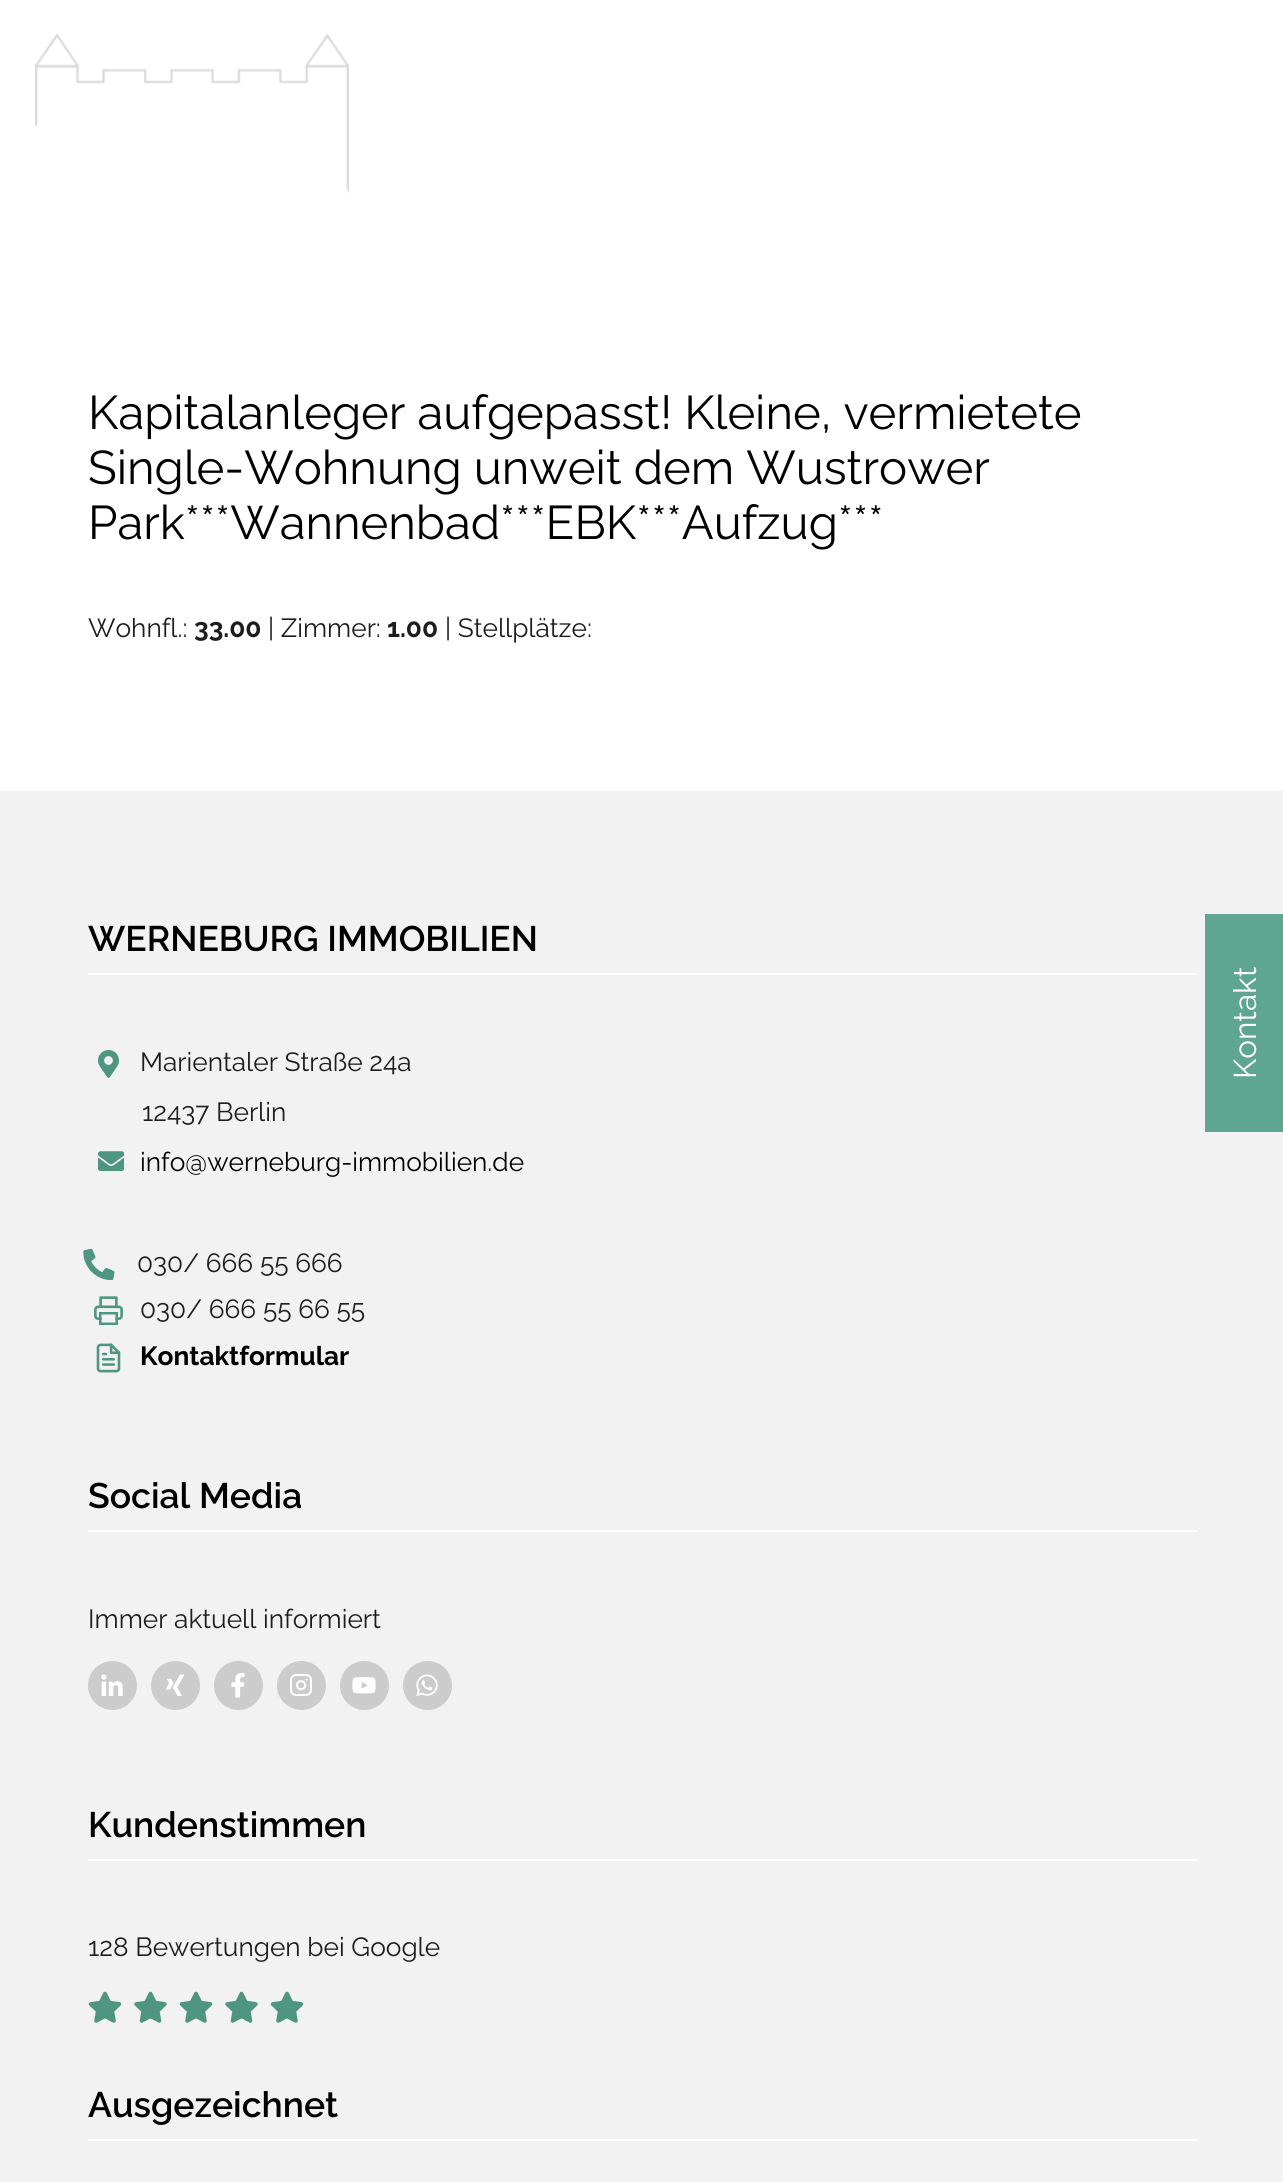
#include <cairo.h>
#include <math.h>
#include <stddef.h>


static void set_color(cairo_t *cr, unsigned color) {
    cairo_set_source_rgb(cr, (color >> 16) / 255.0, (color >> 8 & 255) / 255.0, (color & 255) / 255.0);
}

static void draw_text(cairo_t *cr, double x, double y, const char *s, const char *family, double size, int italic, int bold, unsigned color) {
    cairo_select_font_face(cr, family, italic ? CAIRO_FONT_SLANT_ITALIC : CAIRO_FONT_SLANT_NORMAL,
        bold ? CAIRO_FONT_WEIGHT_BOLD : CAIRO_FONT_WEIGHT_NORMAL);
    cairo_set_font_size(cr, size);
    set_color(cr, color);
    cairo_move_to(cr, x, y);
    cairo_show_text(cr, s);
}

static void fill_rect(cairo_t *cr, double x, double y, double w, double h, unsigned color) {
    set_color(cr, color);
    cairo_rectangle(cr, x, y, w, h);
    cairo_fill(cr);
}

static void draw_image(cairo_t *cr, const char *path, double x, double y, double w, double h) {
    cairo_surface_t *image = cairo_image_surface_create_from_png(path);
    cairo_save(cr);
    cairo_set_source_surface(cr, image, x, y);
    cairo_rectangle(cr, x, y, w, h);
    cairo_fill(cr);
    cairo_restore(cr);
    cairo_surface_destroy(image);
}

int main(void) {
    cairo_surface_t *surface = cairo_image_surface_create(CAIRO_FORMAT_RGB24, 1283, 2182);
    cairo_t *cr = cairo_create(surface);
    cairo_font_options_t *options = cairo_font_options_create();
    cairo_font_options_set_hint_metrics(options, CAIRO_HINT_METRICS_OFF);
    cairo_font_options_set_hint_style(options, CAIRO_HINT_STYLE_NONE);
    cairo_set_font_options(cr, options);
    cairo_set_miter_limit(cr, 4);
    set_color(cr, 0xFFFFFF);
    cairo_paint(cr);
    draw_image(cr, "assets/img1.png", 35, 33, 314, 161);
    draw_text(cr, 88, 429, "Kapitalanleger aufgepasst! Kleine, vermietete", "Raleway", 47.25, 0, 0, 0x000000);
    draw_text(cr, 88, 484, "Single-Wohnung unweit dem Wustrower", "Raleway", 47.25, 0, 0, 0x000000);
    draw_text(cr, 88, 539, "Park***Wannenbad***EBK***Aufzug***", "Raleway", 47.25, 0, 0, 0x000000);
    draw_text(cr, 88, 637, "Wohnfl.:", "Raleway", 26.25, 0, 0, 0x1D1D1D);
    draw_text(cr, 194, 637, "33.00", "Raleway", 26.25, 0, 1, 0x1D1D1D);
    draw_text(cr, 268, 637, "| Zimmer:", "Raleway", 26.25, 0, 0, 0x1D1D1D);
    draw_text(cr, 387, 637, "1.00", "Raleway", 26.25, 0, 1, 0x1D1D1D);
    draw_text(cr, 445, 637, "| Stellplätze:", "Raleway", 26.25, 0, 0, 0x1D1D1D);
    fill_rect(cr, 0, 791, 1283, 1391, 0xF2F2F2);
    fill_rect(cr, 88, 973, 1109, 2, 0xFFFFFF);
    draw_text(cr, 88, 951, "WERNEBURG IMMOBILIEN", "Raleway SemiBold", 35.5, 0, 0, 0x000000);
    draw_image(cr, "assets/img2.png", 98, 1050, 21, 28);
    draw_text(cr, 140, 1071, "Marientaler Straße 24a", "Raleway", 26.25, 0, 0, 0x1D1D1D);
    draw_text(cr, 142, 1121, "12437 Berlin", "Raleway", 26.25, 0, 0, 0x1D1D1D);
    draw_image(cr, "assets/img3.png", 98, 1151, 26, 20);
    draw_text(cr, 140, 1171, "info@werneburg-immobilien.de", "Raleway", 26.25, 0, 0, 0x000000);
    draw_image(cr, "assets/img4.png", 83, 1248, 32, 33);
    draw_text(cr, 137, 1272, "030/ 666 55 666", "Raleway", 26.25, 0, 0, 0x1D1D1D);
    draw_image(cr, "assets/img5.png", 94, 1296, 29, 29);
    draw_text(cr, 140, 1318, "030/ 666 55 66 55", "Raleway", 26.25, 0, 0, 0x1D1D1D);
    draw_image(cr, "assets/img6.png", 96, 1343, 25, 30);
    draw_text(cr, 140, 1365, "Kontaktformular", "Raleway", 26.25, 0, 1, 0x000000);
    fill_rect(cr, 88, 1530, 1109, 2, 0xFFFFFF);
    draw_text(cr, 88, 1508, "Social Media", "Raleway SemiBold", 35.5, 0, 0, 0x000000);
    draw_text(cr, 88, 1628, "Immer aktuell informiert", "Raleway", 26.25, 0, 0, 0x1D1D1D);
    set_color(cr, 0xCCCCCC);
    cairo_new_path(cr);
    cairo_arc(cr, 112.5, 1685.5, 22.5, 0, 2 * M_PI);
    cairo_fill_preserve(cr);
    cairo_set_line_width(cr, 4);
    cairo_stroke(cr);
    draw_image(cr, "assets/img7.png", 101, 1674, 22, 22);
    cairo_arc(cr, 175.5, 1685.5, 22.5, 0, 2 * M_PI);
    cairo_fill_preserve(cr);
    cairo_stroke(cr);
    draw_image(cr, "assets/img8.png", 166, 1674, 18, 22);
    cairo_arc(cr, 238.5, 1685.5, 22.5, 0, 2 * M_PI);
    cairo_fill_preserve(cr);
    cairo_stroke(cr);
    draw_image(cr, "assets/img9.png", 231, 1673, 14, 25);
    cairo_arc(cr, 301.5, 1685.5, 22.5, 0, 2 * M_PI);
    cairo_fill_preserve(cr);
    cairo_stroke(cr);
    draw_image(cr, "assets/img10.png", 290, 1674, 22, 22);
    cairo_arc(cr, 364.5, 1685.5, 22.5, 0, 2 * M_PI);
    cairo_fill_preserve(cr);
    cairo_stroke(cr);
    draw_image(cr, "assets/img11.png", 352, 1677, 24, 17);
    cairo_arc(cr, 427.5, 1685.5, 22.5, 0, 2 * M_PI);
    cairo_fill_preserve(cr);
    cairo_stroke(cr);
    draw_image(cr, "assets/img12.png", 416, 1674, 22, 22);
    fill_rect(cr, 88, 1859, 1109, 2, 0xFFFFFF);
    draw_text(cr, 88, 1837, "Kundenstimmen", "Raleway SemiBold", 35.5, 0, 0, 0x000000);
    draw_text(cr, 88, 1956, "128 Bewertungen bei Google", "Raleway", 26.25, 0, 0, 0x1D1D1D);
    draw_image(cr, "assets/img13.png", 88, 1991, 34, 32);
    draw_image(cr, "assets/img14.png", 134, 1991, 33, 32);
    draw_image(cr, "assets/img13.png", 179, 1991, 34, 32);
    draw_image(cr, "assets/img14.png", 225, 1991, 33, 32);
    draw_image(cr, "assets/img13.png", 270, 1991, 34, 32);
    fill_rect(cr, 88, 2139, 1109, 2, 0xFFFFFF);
    draw_text(cr, 88, 2117, "Ausgezeichnet", "Raleway SemiBold", 35.5, 0, 0, 0x000000);
    fill_rect(cr, 1205, 914, 78, 218, 0x5EA690);
    cairo_save(cr);
    cairo_translate(cr, 1256, 1079);
    cairo_rotate(cr, -90 * M_PI / 180);
    draw_text(cr, 0, 0, "Kontakt", "Raleway", 31.5, 0, 0, 0xFFFFFF);
    cairo_restore(cr);
    cairo_surface_write_to_png(surface, "output.png");
    cairo_font_options_destroy(options);
    cairo_destroy(cr);
    cairo_surface_destroy(surface);
    return 0;
}
